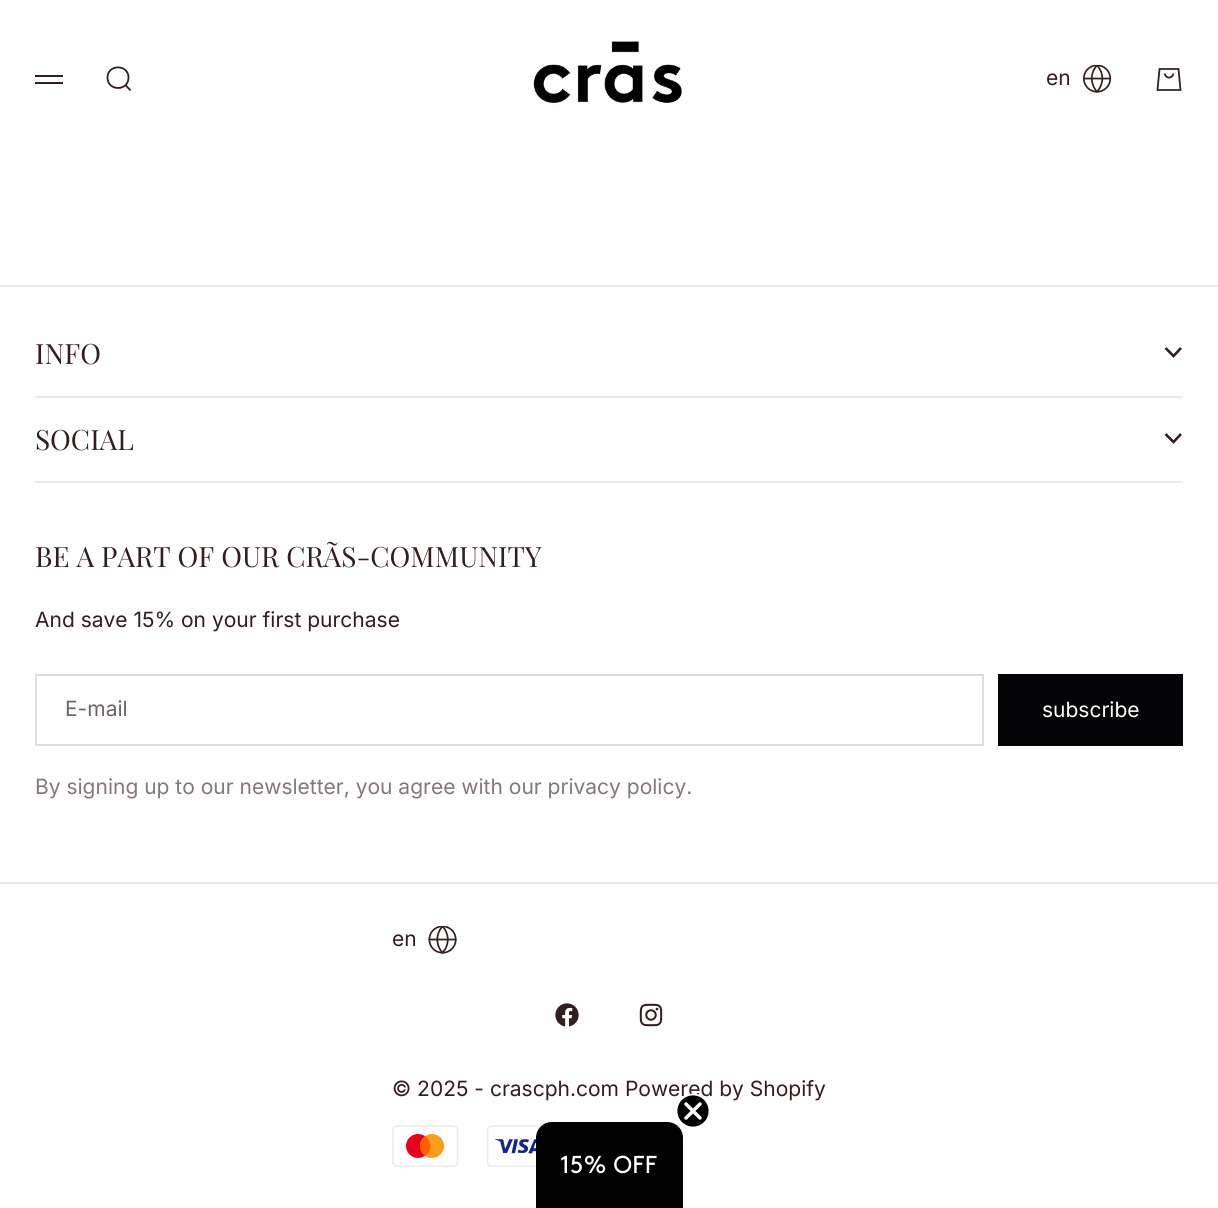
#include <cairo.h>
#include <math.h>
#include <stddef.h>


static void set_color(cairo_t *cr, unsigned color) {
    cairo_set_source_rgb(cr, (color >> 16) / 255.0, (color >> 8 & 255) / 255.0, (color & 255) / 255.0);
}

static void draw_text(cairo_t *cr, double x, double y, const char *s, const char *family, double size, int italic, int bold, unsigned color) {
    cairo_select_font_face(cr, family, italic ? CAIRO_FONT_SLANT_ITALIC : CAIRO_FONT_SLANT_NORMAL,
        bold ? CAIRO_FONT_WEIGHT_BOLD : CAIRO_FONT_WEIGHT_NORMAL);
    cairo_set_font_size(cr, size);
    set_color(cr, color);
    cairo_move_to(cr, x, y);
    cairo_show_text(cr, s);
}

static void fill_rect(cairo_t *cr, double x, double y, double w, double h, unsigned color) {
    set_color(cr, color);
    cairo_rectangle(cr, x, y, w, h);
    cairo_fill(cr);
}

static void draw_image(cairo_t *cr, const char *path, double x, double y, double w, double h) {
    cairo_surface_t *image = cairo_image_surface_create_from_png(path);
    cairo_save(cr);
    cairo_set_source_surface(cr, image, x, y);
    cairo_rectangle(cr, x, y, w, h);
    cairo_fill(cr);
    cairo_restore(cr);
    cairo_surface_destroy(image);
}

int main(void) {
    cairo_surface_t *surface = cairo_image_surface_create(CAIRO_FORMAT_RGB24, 1218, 1208);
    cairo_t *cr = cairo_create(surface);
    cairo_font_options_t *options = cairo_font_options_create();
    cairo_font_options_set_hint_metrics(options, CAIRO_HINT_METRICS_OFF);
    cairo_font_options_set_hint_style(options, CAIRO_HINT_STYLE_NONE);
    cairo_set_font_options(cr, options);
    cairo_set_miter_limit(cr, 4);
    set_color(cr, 0xFFFFFF);
    cairo_paint(cr);
    fill_rect(cr, 35, 75, 28, 2, 0x321E1E);
    fill_rect(cr, 35, 82, 28, 2, 0x321E1E);
    cairo_new_path(cr);
    cairo_move_to(cr, 107.5, 77.5);
    cairo_curve_to(cr, 107.5, 91.5, 128.5, 91.5, 128.5, 77.5);
    cairo_curve_to(cr, 128.5, 64, 107.5, 64, 107.5, 77.5);
    cairo_close_path(cr);
    cairo_move_to(cr, 125.5, 85);
    cairo_line_to(cr, 130.5, 90.5);
    cairo_set_line_width(cr, 1.8);
    cairo_stroke(cr);
    draw_image(cr, "assets/img1.png", 533, 41, 150, 64);
    draw_text(cr, 1046, 85, "en", "Inter", 21, 0, 0, 0x321E1E);
    draw_image(cr, "assets/img2.png", 1082, 65, 30, 28);
    cairo_new_path(cr);
    cairo_move_to(cr, 1157.5, 90);
    cairo_line_to(cr, 1159.5, 69);
    cairo_line_to(cr, 1178.5, 69);
    cairo_line_to(cr, 1180.5, 90);
    cairo_close_path(cr);
    cairo_move_to(cr, 1164.5, 73.5);
    cairo_curve_to(cr, 1166, 79, 1172, 79, 1173.5, 73.5);
    cairo_stroke(cr);
    fill_rect(cr, 0, 285, 1218, 2, 0xEBE9E9);
    draw_text(cr, 35, 364, "INFO", "Playfair Display", 28, 0, 0, 0x321E1E);
    cairo_new_path(cr);
    cairo_move_to(cr, 1181, 348);
    cairo_line_to(cr, 1173.5, 356);
    cairo_line_to(cr, 1165.5, 348);
    cairo_set_line_width(cr, 2.6);
    cairo_stroke(cr);
    fill_rect(cr, 35, 481, 1148, 2, 0xEBE9E9);
    fill_rect(cr, 35, 396, 1148, 2, 0xEBE9E9);
    draw_text(cr, 35, 450, "SOCIAL", "Playfair Display", 28, 0, 0, 0x321E1E);
    cairo_new_path(cr);
    cairo_move_to(cr, 1181, 434);
    cairo_line_to(cr, 1173.5, 442);
    cairo_line_to(cr, 1165.5, 434);
    cairo_stroke(cr);
    draw_text(cr, 35, 567, "BE A PART OF OUR CRÃS-COMMUNITY", "Playfair Display", 28, 0, 0, 0x321E1E);
    draw_text(cr, 35, 627, "And save 15% on your first purchase", "Inter", 21, 0, 0, 0x321E1E);
    cairo_rectangle(cr, 36, 675, 947, 70);
    set_color(cr, 0xE0DDDD);
    cairo_set_line_width(cr, 2);
    cairo_stroke(cr);
    draw_text(cr, 65, 716, "E-mail", "Inter", 21, 0, 0, 0x706262);
    fill_rect(cr, 998, 674, 185, 72, 0x030305);
    draw_text(cr, 1042, 717, "subscribe", "Inter", 21, 0, 0, 0xFFFFFF);
    draw_text(cr, 35, 794, "By signing up to our newsletter, you agree with our privacy policy.", "Inter", 21, 0, 0, 0x847878);
    fill_rect(cr, 0, 882, 1218, 2, 0xEBE9E9);
    draw_text(cr, 392, 946, "en", "Inter", 21, 0, 0, 0x321E1E);
    draw_image(cr, "assets/img3.png", 428, 926, 29, 28);
    draw_image(cr, "assets/img4.png", 555, 1003, 24, 24);
    draw_image(cr, "assets/img5.png", 639, 1003, 24, 24);
    draw_text(cr, 392, 1096, "© 2025 - crascph.com Powered by Shopify", "Inter", 21, 0, 0, 0x321E1E);
    draw_image(cr, "assets/img6.png", 392, 1125, 67, 42);
    draw_image(cr, "assets/img7.png", 487, 1125, 56, 42);
    set_color(cr, 0x000000);
    cairo_new_path(cr);
    cairo_move_to(cr, 552, 1122);
    cairo_line_to(cr, 667, 1122);
    cairo_curve_to(cr, 676, 1122, 683, 1129, 683, 1138);
    cairo_line_to(cr, 683, 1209);
    cairo_line_to(cr, 536, 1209);
    cairo_line_to(cr, 536, 1138);
    cairo_curve_to(cr, 536, 1129, 543, 1122, 552, 1122);
    cairo_close_path(cr);
    cairo_fill(cr);
    cairo_arc(cr, 693, 1111, 16.5, 0, 2 * M_PI);
    cairo_fill_preserve(cr);
    set_color(cr, 0xFFFFFF);
    cairo_set_line_width(cr, 1.8);
    cairo_stroke(cr);
    cairo_new_path(cr);
    cairo_move_to(cr, 686, 1104);
    cairo_line_to(cr, 700, 1118);
    cairo_move_to(cr, 686, 1118);
    cairo_line_to(cr, 700, 1104);
    cairo_close_path(cr);
    cairo_set_line_width(cr, 3.5);
    cairo_set_line_cap(cr, CAIRO_LINE_CAP_ROUND);
    cairo_set_line_join(cr, CAIRO_LINE_JOIN_ROUND);
    cairo_stroke(cr);
    draw_text(cr, 560, 1173, "15% OFF", "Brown", 24.5, 0, 0, 0xFFFFFF);
    cairo_surface_write_to_png(surface, "output.png");
    cairo_font_options_destroy(options);
    cairo_destroy(cr);
    cairo_surface_destroy(surface);
    return 0;
}
